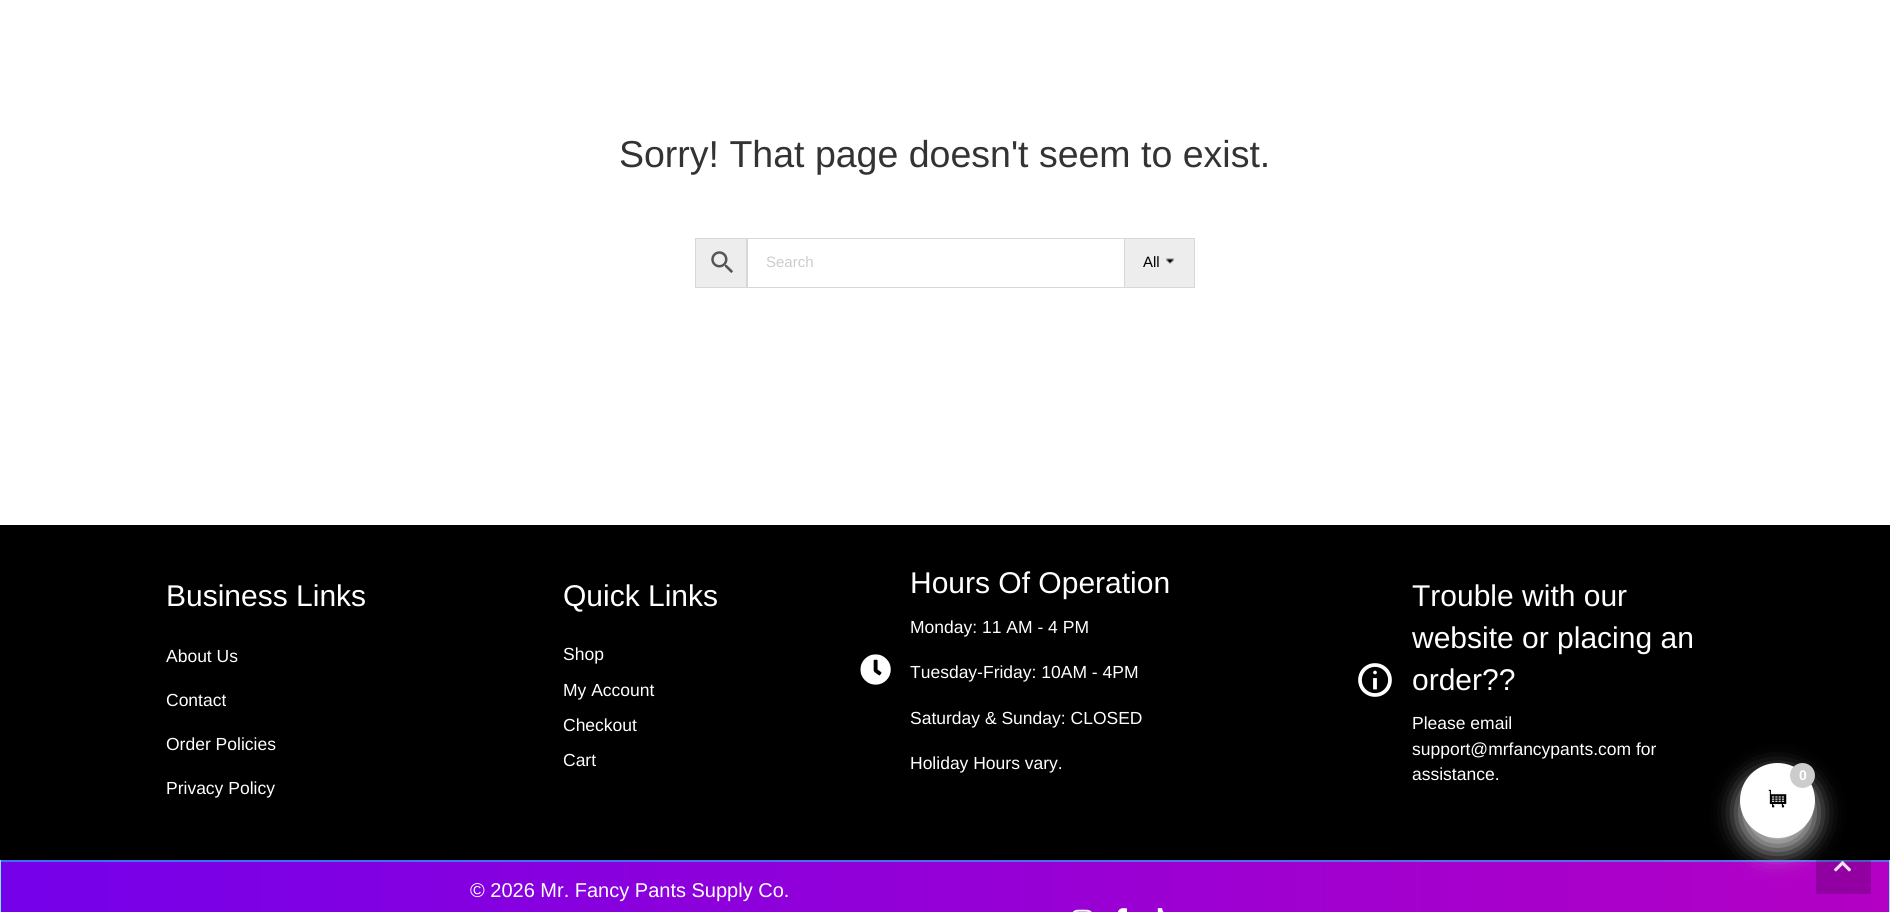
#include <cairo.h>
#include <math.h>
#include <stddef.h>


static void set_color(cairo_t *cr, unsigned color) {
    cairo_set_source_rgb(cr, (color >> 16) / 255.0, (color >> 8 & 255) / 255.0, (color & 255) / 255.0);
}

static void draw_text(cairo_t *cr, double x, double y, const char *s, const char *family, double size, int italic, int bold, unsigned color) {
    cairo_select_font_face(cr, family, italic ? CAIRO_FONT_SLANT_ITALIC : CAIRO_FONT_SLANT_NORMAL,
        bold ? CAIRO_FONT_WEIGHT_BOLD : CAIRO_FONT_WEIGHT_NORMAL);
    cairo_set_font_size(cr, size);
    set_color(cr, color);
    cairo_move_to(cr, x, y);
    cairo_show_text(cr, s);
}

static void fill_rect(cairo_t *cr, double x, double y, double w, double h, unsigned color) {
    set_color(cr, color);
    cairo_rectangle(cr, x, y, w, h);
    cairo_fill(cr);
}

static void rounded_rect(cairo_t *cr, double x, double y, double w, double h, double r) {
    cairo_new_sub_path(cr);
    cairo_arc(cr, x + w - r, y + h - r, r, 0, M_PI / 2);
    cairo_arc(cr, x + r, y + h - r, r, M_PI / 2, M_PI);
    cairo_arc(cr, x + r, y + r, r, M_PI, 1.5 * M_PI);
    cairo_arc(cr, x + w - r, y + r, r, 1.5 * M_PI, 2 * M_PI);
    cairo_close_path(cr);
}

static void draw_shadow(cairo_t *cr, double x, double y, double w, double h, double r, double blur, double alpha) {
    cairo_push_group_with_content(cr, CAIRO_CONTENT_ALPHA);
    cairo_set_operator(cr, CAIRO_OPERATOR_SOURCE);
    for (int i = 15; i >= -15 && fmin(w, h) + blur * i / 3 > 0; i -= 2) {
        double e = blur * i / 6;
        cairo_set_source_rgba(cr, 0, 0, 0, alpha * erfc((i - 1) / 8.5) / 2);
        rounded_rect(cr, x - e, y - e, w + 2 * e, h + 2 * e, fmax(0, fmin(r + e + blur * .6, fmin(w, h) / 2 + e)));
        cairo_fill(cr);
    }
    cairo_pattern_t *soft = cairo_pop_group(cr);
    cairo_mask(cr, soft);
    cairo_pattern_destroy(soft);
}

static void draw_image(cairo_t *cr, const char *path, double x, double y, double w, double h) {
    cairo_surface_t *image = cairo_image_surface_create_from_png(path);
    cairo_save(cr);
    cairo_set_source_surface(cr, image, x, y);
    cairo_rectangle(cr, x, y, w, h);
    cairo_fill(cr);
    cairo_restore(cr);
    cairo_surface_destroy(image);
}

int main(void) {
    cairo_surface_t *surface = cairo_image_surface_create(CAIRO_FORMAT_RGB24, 1890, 912);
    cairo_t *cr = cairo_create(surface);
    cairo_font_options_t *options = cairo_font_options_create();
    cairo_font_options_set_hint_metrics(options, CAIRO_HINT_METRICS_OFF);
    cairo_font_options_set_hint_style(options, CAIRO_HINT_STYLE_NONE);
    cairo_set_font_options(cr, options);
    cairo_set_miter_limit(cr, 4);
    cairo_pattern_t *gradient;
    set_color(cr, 0xF2F2F2);
    cairo_paint(cr);
    fill_rect(cr, 0, 0, 1890, 525, 0xFFFFFF);
    draw_text(cr, 619, 167, "Sorry! That page doesn't seem to exist.", "Liberation Sans", 37.5, 0, 0, 0x333333);
    fill_rect(cr, 696, 239, 50, 48, 0xEDEDED);
    cairo_rectangle(cr, 695.5, 238.5, 52, 49);
    set_color(cr, 0xD8D8D8);
    cairo_set_line_width(cr, 1);
    cairo_stroke(cr);
    draw_image(cr, "assets/img1.png", 711, 251, 22, 22);
    set_color(cr, 0xEDEDED);
    cairo_rectangle(cr, 1124.5, 238.5, 70, 49);
    cairo_fill_preserve(cr);
    set_color(cr, 0xD8D8D8);
    cairo_stroke(cr);
    cairo_rectangle(cr, 746.5, 238.5, 378, 49);
    cairo_stroke(cr);
    draw_text(cr, 766, 267, "Search", "Liberation Sans", 15, 0, 0, 0xCCCCCC);
    draw_text(cr, 1143, 267, "All", "Liberation Sans", 15, 0, 0, 0x000000);
    draw_image(cr, "assets/img2.png", 1165, 258, 10, 6);
    fill_rect(cr, 0, 525, 1890, 335, 0x000000);
    draw_text(cr, 166, 606, "Business Links", "Liberation Sans", 30, 0, 0, 0xFFFFFF);
    draw_text(cr, 166, 662, "About Us", "Liberation Sans", 17.5, 0, 0, 0xFFFFFF);
    draw_text(cr, 166, 706, "Contact", "Liberation Sans", 17.5, 0, 0, 0xFFFFFF);
    draw_text(cr, 166, 750, "Order Policies", "Liberation Sans", 17.5, 0, 0, 0xFFFFFF);
    draw_text(cr, 166, 794, "Privacy Policy", "Liberation Sans", 17.5, 0, 0, 0xFFFFFF);
    draw_text(cr, 563, 606, "Quick Links", "Liberation Sans", 30, 0, 0, 0xFFFFFF);
    draw_text(cr, 563, 660, "Shop", "Liberation Sans", 17.5, 0, 0, 0xFFFFFF);
    draw_text(cr, 563, 696, "My Account", "Liberation Sans", 17.5, 0, 0, 0xFFFFFF);
    draw_text(cr, 563, 731, "Checkout", "Liberation Sans", 17.5, 0, 0, 0xFFFFFF);
    draw_text(cr, 563, 766, "Cart", "Liberation Sans", 17.5, 0, 0, 0xFFFFFF);
    draw_image(cr, "assets/img3.png", 860, 654, 31, 31);
    draw_text(cr, 910, 593, "Hours Of Operation", "Liberation Sans", 30, 0, 0, 0xFFFFFF);
    draw_text(cr, 910, 633, "Monday: 11 AM - 4 PM", "Liberation Sans", 17.5, 0, 0, 0xFFFFFF);
    draw_text(cr, 910, 678, "Tuesday-Friday: 10AM - 4PM", "Liberation Sans", 17.5, 0, 0, 0xFFFFFF);
    draw_text(cr, 910, 724, "Saturday & Sunday: CLOSED", "Liberation Sans", 17.5, 0, 0, 0xFFFFFF);
    draw_text(cr, 910, 769, "Holiday Hours vary.", "Liberation Sans", 17.5, 0, 0, 0xFFFFFF);
    draw_image(cr, "assets/img4.png", 1358, 663, 34, 34);
    draw_text(cr, 1412, 606, "Trouble with our", "Liberation Sans", 30, 0, 0, 0xFFFFFF);
    draw_text(cr, 1412, 648, "website or placing an", "Liberation Sans", 30, 0, 0, 0xFFFFFF);
    draw_text(cr, 1412, 690, "order?\077", "Liberation Sans", 30, 0, 0, 0xFFFFFF);
    draw_text(cr, 1412, 729, "Please email", "Liberation Sans", 17.5, 0, 0, 0xFFFFFF);
    draw_text(cr, 1412, 755, "support@mrfancypants.com for", "Liberation Sans", 17.5, 0, 0, 0xFFFFFF);
    draw_text(cr, 1412, 780, "assistance.", "Liberation Sans", 17.5, 0, 0, 0xFFFFFF);
    gradient = cairo_pattern_create_linear(1.2, 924, 1889, 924);
    cairo_pattern_add_color_stop_rgba(gradient, 0, 0.459, 0, 0.918, 1);
    cairo_pattern_add_color_stop_rgba(gradient, 1, 0.702, 0, 0.769, 1);
    cairo_set_source(cr, gradient);
    cairo_pattern_destroy(gradient);
    cairo_rectangle(cr, 1, 860, 1888, 52);
    cairo_fill(cr);
    cairo_set_source_rgba(cr, 0, 0.898, 0.976, 0.49);
    cairo_new_path(cr);
    cairo_move_to(cr, 0, 860);
    cairo_line_to(cr, 1890, 860);
    cairo_line_to(cr, 1889, 862);
    cairo_line_to(cr, 1, 862);
    cairo_close_path(cr);
    cairo_fill(cr);
    cairo_new_path(cr);
    cairo_move_to(cr, 1890, 860);
    cairo_line_to(cr, 1890, 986);
    cairo_line_to(cr, 1889, 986);
    cairo_line_to(cr, 1889, 862);
    cairo_close_path(cr);
    cairo_fill(cr);
    cairo_new_path(cr);
    cairo_move_to(cr, 0, 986);
    cairo_line_to(cr, 0, 860);
    cairo_line_to(cr, 1, 862);
    cairo_line_to(cr, 1, 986);
    cairo_close_path(cr);
    cairo_fill(cr);
    draw_text(cr, 470, 897, "© 2026 Mr. Fancy Pants Supply Co.", "Liberation Sans", 20, 0, 0, 0xFFFFFF);
    draw_image(cr, "assets/img5.png", 1072, 909, 20, 3);
    draw_image(cr, "assets/img6.png", 1117, 908, 10, 4);
    draw_image(cr, "assets/img7.png", 1157, 908, 7, 4);
    cairo_set_source_rgba(cr, 0, 0, 0, 0.18);
    cairo_rectangle(cr, 1816, 860, 55, 34);
    cairo_fill(cr);
    draw_image(cr, "assets/img9.png", 1834, 861, 17, 11);
    set_color(cr, 0xCCCCCC);
    draw_shadow(cr, 1740, 775, 75, 75, 37.5, 12.5, 1);
    set_color(cr, 0xFFFFFF);
    cairo_arc(cr, 1777.5, 800.5, 37.5, 0, 2 * M_PI);
    cairo_fill(cr);
    set_color(cr, 0xCCCCCC);
    cairo_arc(cr, 1802.5, 775.5, 12.5, 0, 2 * M_PI);
    cairo_fill(cr);
    draw_text(cr, 1799, 780, "0", "Liberation Sans", 14, 0, 1, 0xFFFFFF);
    draw_image(cr, "assets/img8.png", 1768, 789, 19, 19);
    cairo_surface_write_to_png(surface, "output.png");
    cairo_font_options_destroy(options);
    cairo_destroy(cr);
    cairo_surface_destroy(surface);
    return 0;
}
